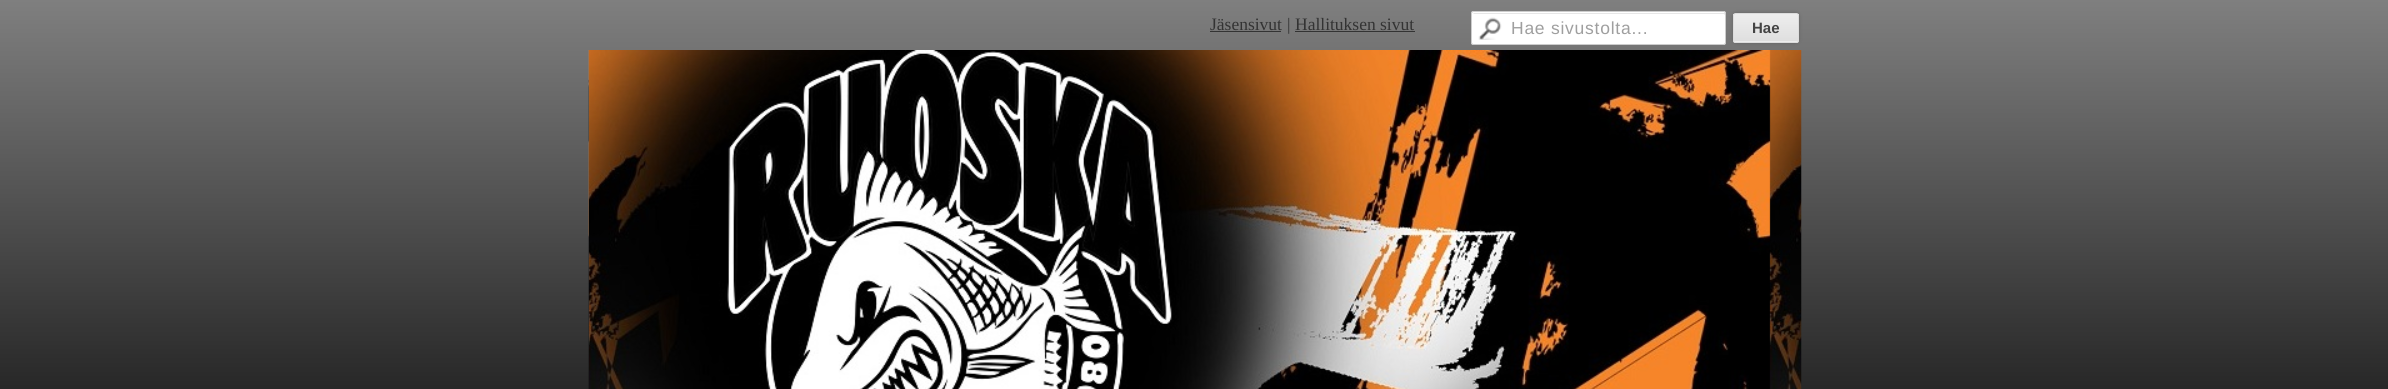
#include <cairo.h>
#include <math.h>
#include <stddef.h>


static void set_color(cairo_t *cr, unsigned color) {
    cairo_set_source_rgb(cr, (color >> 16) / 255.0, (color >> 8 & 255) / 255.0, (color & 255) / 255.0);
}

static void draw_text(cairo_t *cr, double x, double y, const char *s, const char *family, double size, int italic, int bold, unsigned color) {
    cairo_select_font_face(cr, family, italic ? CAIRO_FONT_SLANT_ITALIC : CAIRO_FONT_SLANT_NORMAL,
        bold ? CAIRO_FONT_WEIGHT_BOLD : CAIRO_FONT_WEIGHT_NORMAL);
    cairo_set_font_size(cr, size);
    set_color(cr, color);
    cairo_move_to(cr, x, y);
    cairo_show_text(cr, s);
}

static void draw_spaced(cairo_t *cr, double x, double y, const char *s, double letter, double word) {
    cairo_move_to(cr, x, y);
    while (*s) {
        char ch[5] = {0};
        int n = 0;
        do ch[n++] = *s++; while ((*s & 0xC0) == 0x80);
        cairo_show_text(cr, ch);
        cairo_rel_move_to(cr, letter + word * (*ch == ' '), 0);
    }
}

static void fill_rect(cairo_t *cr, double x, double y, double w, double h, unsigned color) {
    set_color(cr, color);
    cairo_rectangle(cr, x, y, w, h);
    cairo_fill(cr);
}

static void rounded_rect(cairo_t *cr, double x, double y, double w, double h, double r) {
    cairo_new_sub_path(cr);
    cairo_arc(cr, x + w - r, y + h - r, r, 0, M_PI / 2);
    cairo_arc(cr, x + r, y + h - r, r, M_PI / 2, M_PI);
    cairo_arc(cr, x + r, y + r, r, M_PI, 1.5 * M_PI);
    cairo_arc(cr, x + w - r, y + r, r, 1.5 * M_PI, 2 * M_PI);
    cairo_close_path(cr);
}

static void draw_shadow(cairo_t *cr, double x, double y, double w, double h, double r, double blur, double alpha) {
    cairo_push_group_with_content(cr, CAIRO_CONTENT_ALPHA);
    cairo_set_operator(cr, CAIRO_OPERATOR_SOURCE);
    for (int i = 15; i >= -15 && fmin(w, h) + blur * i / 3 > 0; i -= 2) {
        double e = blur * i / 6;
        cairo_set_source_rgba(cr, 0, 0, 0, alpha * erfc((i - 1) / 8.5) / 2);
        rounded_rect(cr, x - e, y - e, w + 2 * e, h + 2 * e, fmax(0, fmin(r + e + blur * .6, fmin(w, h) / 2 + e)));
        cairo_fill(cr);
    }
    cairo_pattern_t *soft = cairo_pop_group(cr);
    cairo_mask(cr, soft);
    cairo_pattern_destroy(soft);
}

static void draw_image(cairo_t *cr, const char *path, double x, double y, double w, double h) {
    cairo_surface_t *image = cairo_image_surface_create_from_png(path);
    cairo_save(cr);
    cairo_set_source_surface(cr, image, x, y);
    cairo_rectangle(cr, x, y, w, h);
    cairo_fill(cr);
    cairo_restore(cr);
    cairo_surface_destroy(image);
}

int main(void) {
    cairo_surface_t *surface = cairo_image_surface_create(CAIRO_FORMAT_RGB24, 2388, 389);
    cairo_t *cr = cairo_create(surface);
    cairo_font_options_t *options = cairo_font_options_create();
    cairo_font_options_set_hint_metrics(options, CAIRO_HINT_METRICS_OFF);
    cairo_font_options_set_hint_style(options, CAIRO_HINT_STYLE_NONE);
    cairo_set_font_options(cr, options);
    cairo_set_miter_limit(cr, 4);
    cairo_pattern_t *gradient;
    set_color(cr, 0xFFFFFF);
    cairo_paint(cr);
    gradient = cairo_pattern_create_linear(1194, 0, 1194, 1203);
    cairo_pattern_add_color_stop_rgba(gradient, 0, 0.498, 0.498, 0.498, 1);
    cairo_pattern_add_color_stop_rgba(gradient, 0.47, 0, 0, 0, 1);
    cairo_pattern_add_color_stop_rgba(gradient, 1, 0, 0, 0, 1);
    cairo_set_source(cr, gradient);
    cairo_pattern_destroy(gradient);
    cairo_rectangle(cr, 0, 0, 2388, 389);
    cairo_fill(cr);
    draw_text(cr, 1210, 30, "Jäsensivut", "Liberation Serif", 17.5, 0, 0, 0x333333);
    fill_rect(cr, 1210, 31, 71, 1, 0x333333);
    draw_text(cr, 1287, 30, "|", "Liberation Serif", 17.5, 0, 0, 0x333333);
    draw_text(cr, 1295, 30, "Hallituksen sivut", "Liberation Serif", 17.5, 0, 0, 0x333333);
    fill_rect(cr, 1295, 31, 120, 1, 0x333333);
    set_color(cr, 0xFFFFFF);
    rounded_rect(cr, 1471, 11, 255, 34, 2.5);
    cairo_fill(cr);
    draw_image(cr, "assets/img1.png", 1478, 17, 24, 23);
    set_color(cr, 0xE6E6E6);
    cairo_new_path(cr);
    cairo_move_to(cr, 1474, 14);
    cairo_line_to(cr, 1724, 14);
    cairo_line_to(cr, 1725, 15);
    cairo_line_to(cr, 1725, 13);
    cairo_line_to(cr, 1474, 13);
    cairo_line_to(cr, 1473, 14);
    cairo_close_path(cr);
    cairo_fill(cr);
    rounded_rect(cr, 1471.5, 11.5, 254, 33, 2);
    set_color(cr, 0xCCCCCC);
    cairo_set_line_width(cr, 1);
    cairo_stroke(cr);
    cairo_select_font_face(cr, "Liberation Sans", CAIRO_FONT_SLANT_NORMAL, CAIRO_FONT_WEIGHT_NORMAL);
    set_color(cr, 0x9F9F9F);
    draw_spaced(cr, 1511, 34, "Hae sivustolta...", 0.75, 0);
    set_color(cr, 0x666666);
    draw_shadow(cr, 1733, 13, 66, 30, 2.5, 2, 1);
    gradient = cairo_pattern_create_linear(1734, 14, 1734, 41);
    cairo_pattern_add_color_stop_rgba(gradient, 0.05, 0.929, 0.929, 0.929, 1);
    cairo_pattern_add_color_stop_rgba(gradient, 1, 0.875, 0.875, 0.875, 1);
    cairo_set_source(cr, gradient);
    cairo_pattern_destroy(gradient);
    cairo_rectangle(cr, 1733, 14, 66, 27);
    cairo_fill(cr);
    cairo_save(cr);
    rounded_rect(cr, 1733, 13, 66, 30, 2.5);
    cairo_clip(cr);
    gradient = cairo_pattern_create_linear(1734, 41, 1734, 69);
    cairo_pattern_add_color_stop_rgba(gradient, 0.05, 0.929, 0.929, 0.929, 1);
    cairo_pattern_add_color_stop_rgba(gradient, 1, 0.875, 0.875, 0.875, 1);
    cairo_set_source(cr, gradient);
    cairo_pattern_destroy(gradient);
    cairo_rectangle(cr, 1733, 41, 66, 2);
    cairo_fill(cr);
    cairo_restore(cr);
    rounded_rect(cr, 1733.5, 13.5, 65, 29, 2);
    set_color(cr, 0xDCDCDC);
    cairo_stroke(cr);
    draw_text(cr, 1752, 33, "Hae", "Liberation Sans", 15, 0, 1, 0x444444);
    draw_image(cr, "assets/img2.png", 588, 50, 1214, 339);
    cairo_surface_write_to_png(surface, "output.png");
    cairo_font_options_destroy(options);
    cairo_destroy(cr);
    cairo_surface_destroy(surface);
    return 0;
}
